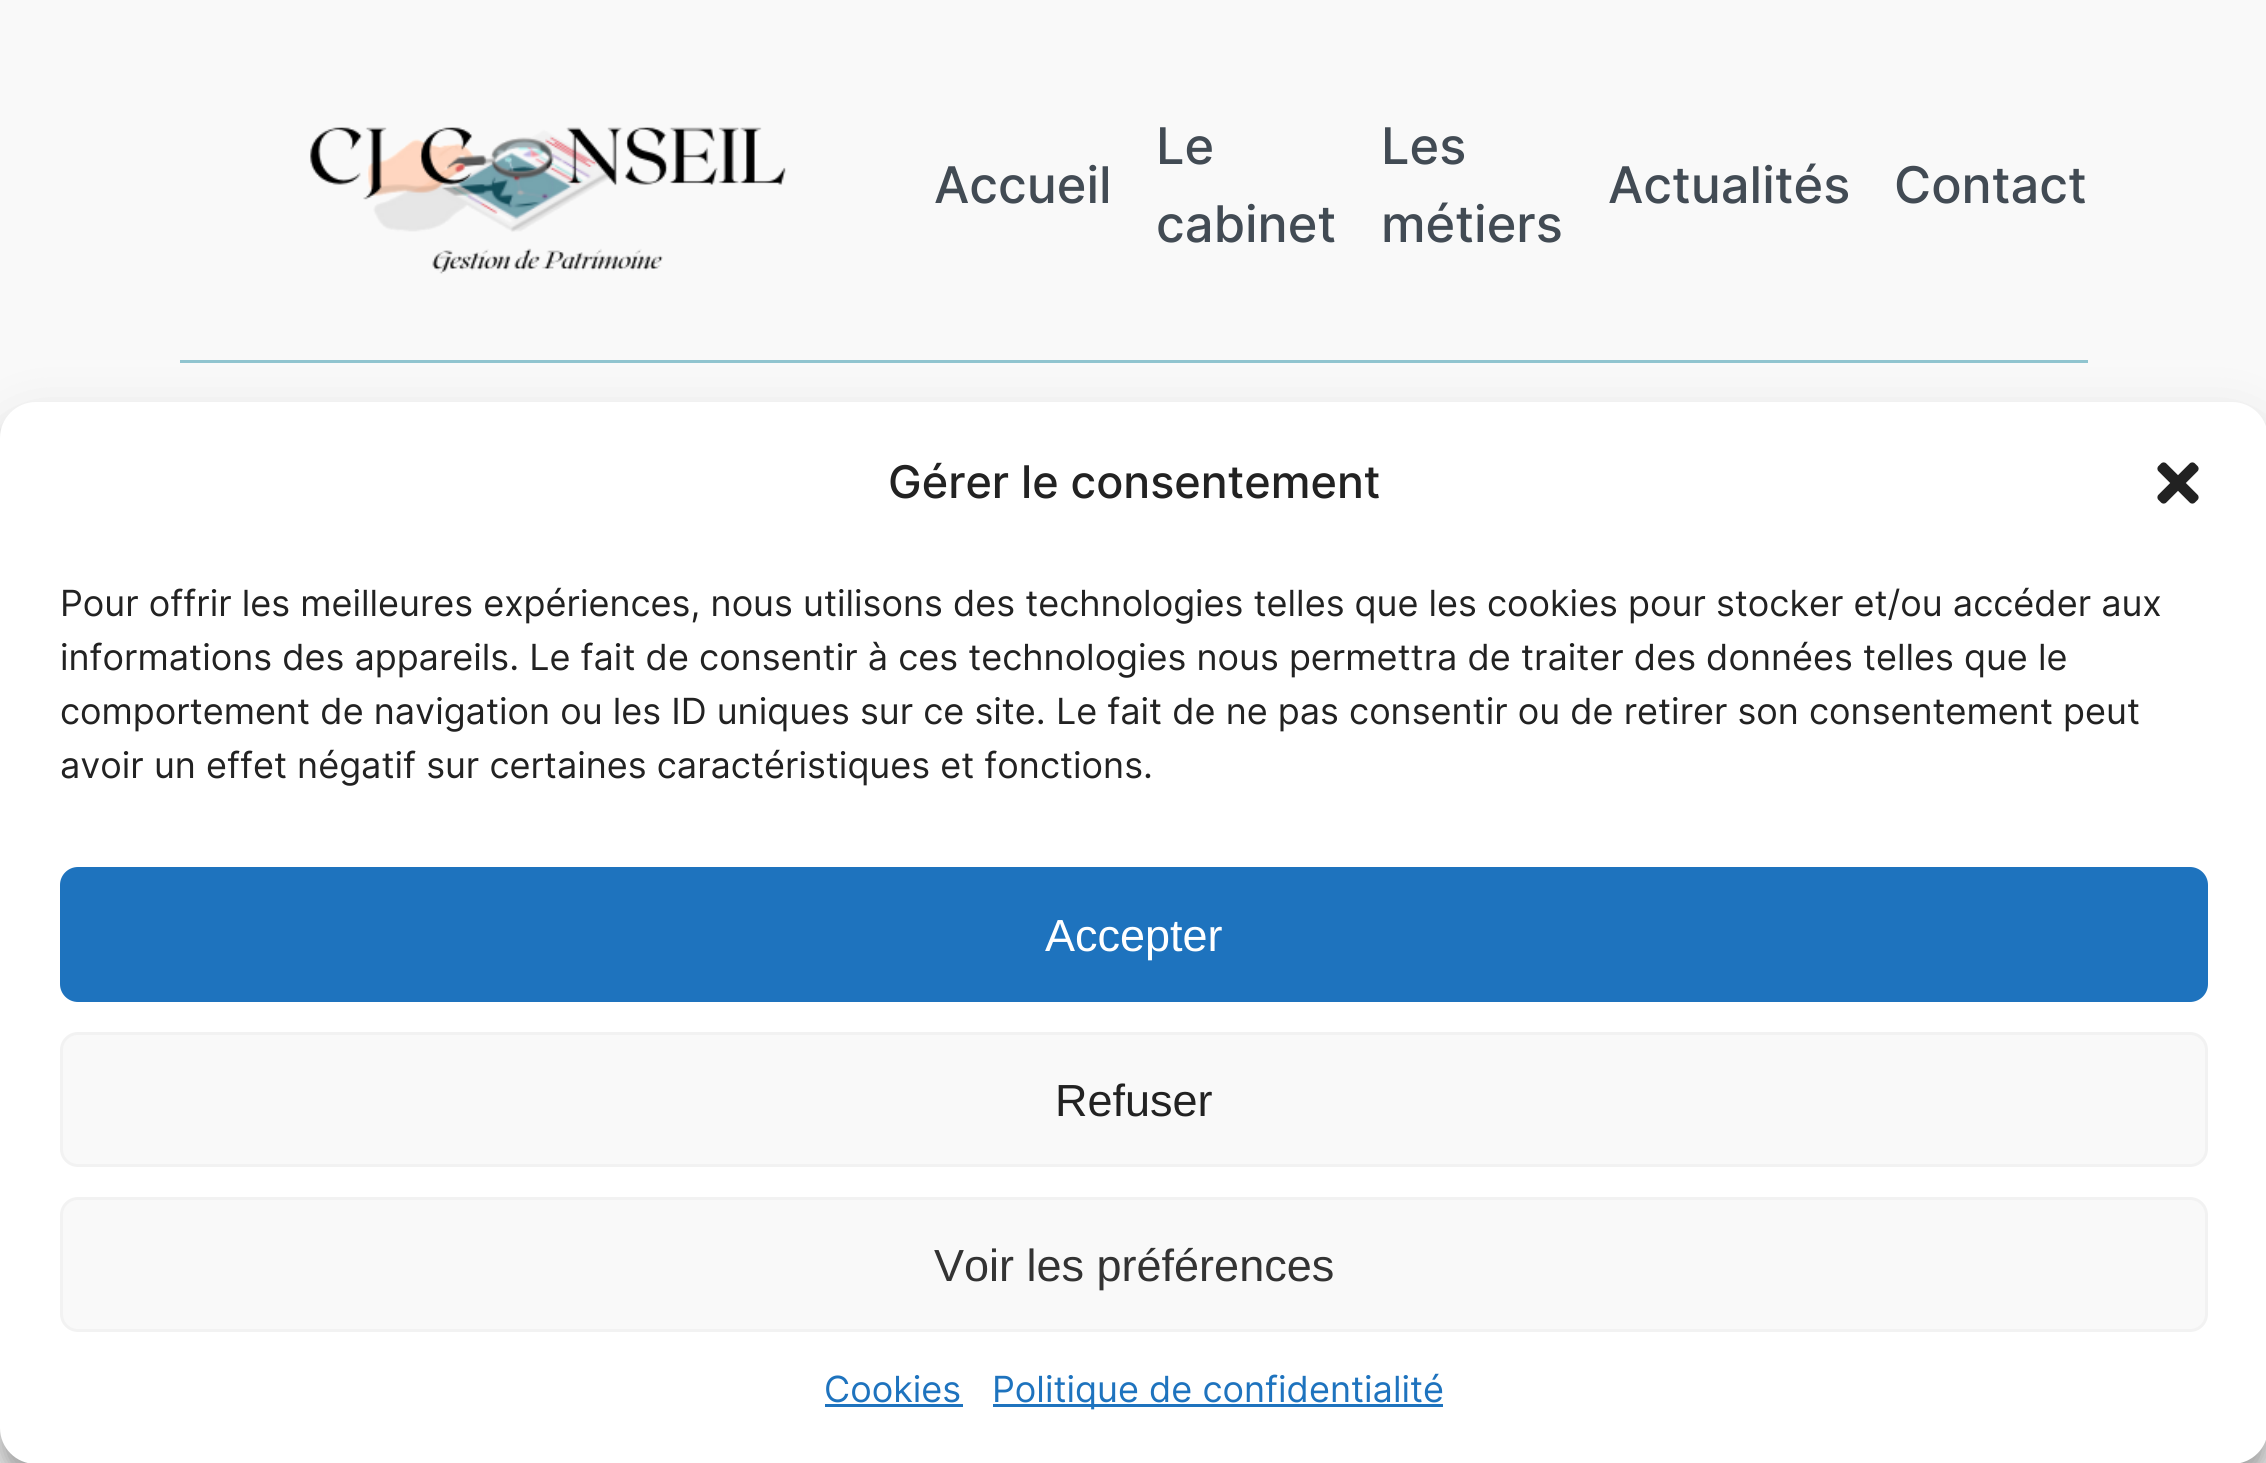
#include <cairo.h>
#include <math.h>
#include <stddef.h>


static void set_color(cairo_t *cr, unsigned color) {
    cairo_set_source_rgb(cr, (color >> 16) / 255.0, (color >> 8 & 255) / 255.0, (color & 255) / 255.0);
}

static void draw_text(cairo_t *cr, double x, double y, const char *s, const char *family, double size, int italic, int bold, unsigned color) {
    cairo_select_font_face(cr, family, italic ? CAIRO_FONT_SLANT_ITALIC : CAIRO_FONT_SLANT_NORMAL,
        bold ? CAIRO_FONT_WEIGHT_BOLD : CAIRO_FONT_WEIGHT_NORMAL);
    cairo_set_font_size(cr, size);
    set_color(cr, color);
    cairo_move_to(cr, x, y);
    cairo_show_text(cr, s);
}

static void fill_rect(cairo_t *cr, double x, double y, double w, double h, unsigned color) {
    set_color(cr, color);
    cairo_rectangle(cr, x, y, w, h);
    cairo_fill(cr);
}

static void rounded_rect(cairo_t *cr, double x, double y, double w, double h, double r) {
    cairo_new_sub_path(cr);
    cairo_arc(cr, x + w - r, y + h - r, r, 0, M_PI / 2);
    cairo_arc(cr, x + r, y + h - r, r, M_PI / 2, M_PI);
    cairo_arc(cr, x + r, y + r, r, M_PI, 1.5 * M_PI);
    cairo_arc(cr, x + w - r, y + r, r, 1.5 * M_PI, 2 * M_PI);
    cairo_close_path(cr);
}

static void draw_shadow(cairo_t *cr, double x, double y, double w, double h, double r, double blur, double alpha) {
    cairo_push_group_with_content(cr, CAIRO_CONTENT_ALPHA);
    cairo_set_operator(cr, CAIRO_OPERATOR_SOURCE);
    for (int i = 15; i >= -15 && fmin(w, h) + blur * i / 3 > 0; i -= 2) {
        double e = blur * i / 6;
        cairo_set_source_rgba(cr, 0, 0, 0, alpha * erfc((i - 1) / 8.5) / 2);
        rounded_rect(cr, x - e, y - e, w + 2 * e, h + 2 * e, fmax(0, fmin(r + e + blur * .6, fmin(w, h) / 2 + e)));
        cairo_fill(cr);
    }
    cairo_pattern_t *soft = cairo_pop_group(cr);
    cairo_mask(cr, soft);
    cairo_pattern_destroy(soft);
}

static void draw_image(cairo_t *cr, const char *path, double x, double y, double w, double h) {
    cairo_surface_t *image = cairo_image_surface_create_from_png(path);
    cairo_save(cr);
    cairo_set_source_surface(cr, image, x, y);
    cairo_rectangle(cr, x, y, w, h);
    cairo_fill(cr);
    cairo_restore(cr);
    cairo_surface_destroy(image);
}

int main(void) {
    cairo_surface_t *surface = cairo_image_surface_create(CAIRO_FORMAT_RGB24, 2266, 1463);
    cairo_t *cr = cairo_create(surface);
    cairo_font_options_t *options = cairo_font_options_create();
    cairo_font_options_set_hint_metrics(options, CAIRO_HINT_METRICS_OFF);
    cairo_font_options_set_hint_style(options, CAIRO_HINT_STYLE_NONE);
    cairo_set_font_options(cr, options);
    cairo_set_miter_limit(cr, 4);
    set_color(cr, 0xF9F9F9);
    cairo_paint(cr);
    fill_rect(cr, 180, 360, 1908, 3, 0x90C4CF);
    draw_image(cr, "assets/img1.png", 310, 127, 476, 147);
    draw_text(cr, 934, 203, "Accueil", "Inter Medium", 50.5, 0, 0, 0x424B54);
    draw_text(cr, 1156, 164, "Le", "Inter Medium", 50.5, 0, 0, 0x424B54);
    draw_text(cr, 1156, 242, "cabinet", "Inter Medium", 50.5, 0, 0, 0x424B54);
    draw_text(cr, 1381, 164, "Les", "Inter Medium", 50.5, 0, 0, 0x424B54);
    draw_text(cr, 1381, 242, "métiers", "Inter Medium", 50.5, 0, 0, 0x424B54);
    draw_text(cr, 1608, 203, "Actualités", "Inter Medium", 50.5, 0, 0, 0x424B54);
    draw_text(cr, 1894, 203, "Contact", "Inter Medium", 50.5, 0, 0, 0x424B54);
    set_color(cr, 0x000000);
    draw_shadow(cr, 0, 420, 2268, 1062, 36, 9, 0.23);
    draw_shadow(cr, 0, 432, 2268, 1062, 36, 30, 0.19);
    set_color(cr, 0xFFFFFF);
    rounded_rect(cr, 0, 402, 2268, 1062, 36);
    cairo_fill(cr);
    draw_text(cr, 888, 498, "Gérer le consentement", "Inter Medium", 45, 0, 0, 0x222222);
    draw_image(cr, "assets/img2.png", 2157, 462, 42, 42);
    draw_text(cr, 60, 616, "Pour offrir les meilleures expériences, nous utilisons des technologies telles que les cookies pour stocker et/ou accéder aux", "Inter", 36, 0, 0, 0x222222);
    draw_text(cr, 60, 670, "informations des appareils. Le fait de consentir à ces technologies nous permettra de traiter des données telles que le", "Inter", 36, 0, 0, 0x222222);
    draw_text(cr, 60, 724, "comportement de navigation ou les ID uniques sur ce site. Le fait de ne pas consentir ou de retirer son consentement peut", "Inter", 36, 0, 0, 0x222222);
    draw_text(cr, 60, 778, "avoir un effet négatif sur certaines caractéristiques et fonctions.", "Inter", 36, 0, 0, 0x222222);
    set_color(cr, 0x1E73BE);
    rounded_rect(cr, 61.5, 868.5, 2145, 132, 16.5);
    cairo_fill_preserve(cr);
    cairo_set_line_width(cr, 3);
    cairo_stroke(cr);
    draw_text(cr, 1045, 951, "Accepter", "Liberation Sans", 45, 0, 0, 0xFFFFFF);
    set_color(cr, 0xF9F9F9);
    rounded_rect(cr, 61.5, 1033.5, 2145, 132, 16.5);
    cairo_fill_preserve(cr);
    set_color(cr, 0xF2F2F2);
    cairo_stroke(cr);
    draw_text(cr, 1055, 1116, "Refuser", "Liberation Sans", 45, 0, 0, 0x222222);
    set_color(cr, 0xF9F9F9);
    rounded_rect(cr, 61.5, 1198.5, 2145, 132, 16.5);
    cairo_fill_preserve(cr);
    set_color(cr, 0xF2F2F2);
    cairo_stroke(cr);
    draw_text(cr, 934, 1281, "Voir les préférences", "Liberation Sans", 45, 0, 0, 0x333333);
    draw_text(cr, 824, 1402, "Cookies", "Inter", 36, 0, 0, 0x1E73BE);
    fill_rect(cr, 825, 1404, 138, 3, 0x1E73BE);
    fill_rect(cr, 993, 1404, 450, 3, 0x1E73BE);
    draw_text(cr, 992, 1402, "Politique de confidentialité", "Inter", 36, 0, 0, 0x1E73BE);
    cairo_surface_write_to_png(surface, "output.png");
    cairo_font_options_destroy(options);
    cairo_destroy(cr);
    cairo_surface_destroy(surface);
    return 0;
}
